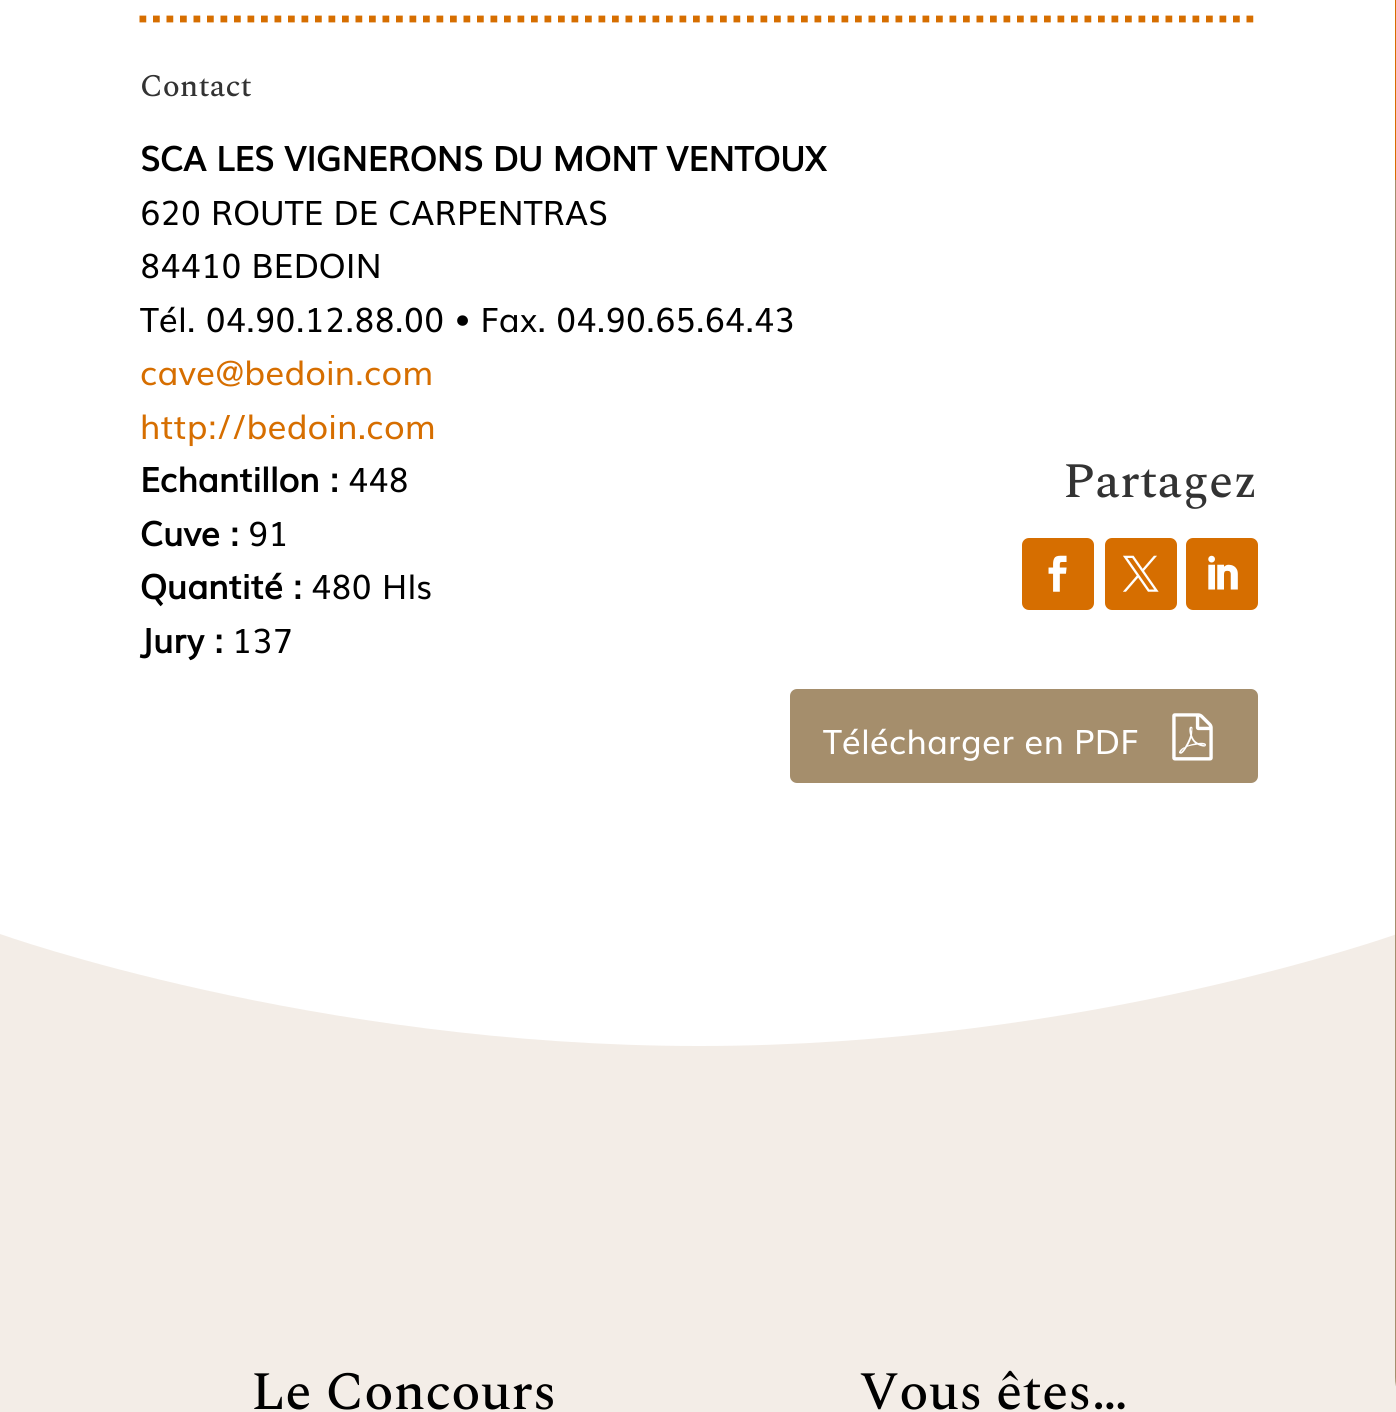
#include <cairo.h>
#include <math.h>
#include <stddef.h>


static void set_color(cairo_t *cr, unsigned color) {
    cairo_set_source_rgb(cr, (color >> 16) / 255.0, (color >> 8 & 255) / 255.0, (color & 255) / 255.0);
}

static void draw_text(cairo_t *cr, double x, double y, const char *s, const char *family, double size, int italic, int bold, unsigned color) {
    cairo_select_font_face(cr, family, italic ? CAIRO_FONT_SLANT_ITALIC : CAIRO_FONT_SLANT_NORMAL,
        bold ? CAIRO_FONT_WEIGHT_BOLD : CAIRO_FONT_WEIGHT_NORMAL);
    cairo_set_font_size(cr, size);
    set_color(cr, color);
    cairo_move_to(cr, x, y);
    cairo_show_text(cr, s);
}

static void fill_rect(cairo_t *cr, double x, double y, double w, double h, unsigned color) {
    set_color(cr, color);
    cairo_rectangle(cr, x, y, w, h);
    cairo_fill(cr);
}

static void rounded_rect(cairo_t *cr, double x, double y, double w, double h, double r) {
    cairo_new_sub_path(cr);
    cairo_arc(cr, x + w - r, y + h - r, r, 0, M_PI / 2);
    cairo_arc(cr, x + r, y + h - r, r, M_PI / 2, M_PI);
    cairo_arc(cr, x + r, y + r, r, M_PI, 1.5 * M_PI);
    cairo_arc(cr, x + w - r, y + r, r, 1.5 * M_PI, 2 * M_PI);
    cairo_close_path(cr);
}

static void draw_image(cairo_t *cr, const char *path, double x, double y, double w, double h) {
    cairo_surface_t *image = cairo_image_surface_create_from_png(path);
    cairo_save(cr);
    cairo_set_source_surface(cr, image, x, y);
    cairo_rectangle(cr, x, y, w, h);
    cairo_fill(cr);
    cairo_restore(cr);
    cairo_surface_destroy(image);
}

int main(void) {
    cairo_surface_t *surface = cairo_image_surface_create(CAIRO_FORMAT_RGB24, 1396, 1412);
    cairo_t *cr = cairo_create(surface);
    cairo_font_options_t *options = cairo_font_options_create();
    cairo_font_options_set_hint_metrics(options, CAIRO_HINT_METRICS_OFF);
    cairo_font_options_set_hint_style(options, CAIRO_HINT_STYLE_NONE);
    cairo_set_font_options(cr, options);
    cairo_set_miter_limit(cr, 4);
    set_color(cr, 0xFFFFFF);
    cairo_paint(cr);
    cairo_new_path(cr);
    cairo_move_to(cr, 139.5, 19);
    cairo_line_to(cr, 1258, 19);
    set_color(cr, 0xD66E00);
    cairo_set_line_width(cr, 6.8);
    cairo_set_dash(cr, (double[]){6.75, 6.75}, 2, 0);
    cairo_stroke(cr);
    draw_text(cr, 140, 96, "Contact", "Spectral Medium", 31.5, 0, 0, 0x333333);
    draw_text(cr, 140, 171, "SCA LES VIGNERONS DU MONT VENTOUX", "Muli", 33.75, 0, 1, 0x000000);
    draw_text(cr, 140, 225, "620 ROUTE DE CARPENTRAS", "Muli", 33.75, 0, 0, 0x000000);
    draw_text(cr, 140, 278, "84410 BEDOIN", "Muli", 33.75, 0, 0, 0x000000);
    draw_text(cr, 140, 332, "Tél. 04.90.12.88.00 • Fax. 04.90.65.64.43", "Muli", 33.75, 0, 0, 0x000000);
    draw_text(cr, 140, 385, "cave@bedoin.com", "Muli", 33.75, 0, 0, 0xD66E00);
    draw_text(cr, 140, 439, "http://bedoin.com", "Muli", 33.75, 0, 0, 0xD66E00);
    draw_text(cr, 140, 492, "Echantillon :", "Muli", 33.75, 0, 1, 0x000000);
    draw_text(cr, 348, 492, "448", "Muli", 33.75, 0, 0, 0x000000);
    draw_text(cr, 140, 546, "Cuve :", "Muli", 33.75, 0, 1, 0x000000);
    draw_text(cr, 248, 546, "91", "Muli", 33.75, 0, 0, 0x000000);
    draw_text(cr, 140, 599, "Quantité :", "Muli", 33.75, 0, 1, 0x000000);
    draw_text(cr, 311, 599, "480 Hls", "Muli", 33.75, 0, 0, 0x000000);
    draw_text(cr, 140, 653, "Jury :", "Muli", 33.75, 0, 1, 0x000000);
    draw_text(cr, 232, 653, "137", "Muli", 33.75, 0, 0, 0x000000);
    draw_text(cr, 1063, 497, "Partagez", "Spectral Medium", 49.5, 0, 0, 0x333333);
    set_color(cr, 0xD66E00);
    rounded_rect(cr, 1022, 538, 72, 72, 7);
    cairo_fill(cr);
    draw_image(cr, "assets/img1.png", 1048, 555, 19, 37);
    rounded_rect(cr, 1105, 538, 72, 72, 7);
    cairo_fill(cr);
    draw_image(cr, "assets/img2.png", 1123, 555, 36, 37);
    rounded_rect(cr, 1186, 538, 72, 72, 7);
    cairo_fill(cr);
    draw_image(cr, "assets/img3.png", 1208, 555, 30, 35);
    set_color(cr, 0xA58E6C);
    rounded_rect(cr, 790, 689, 468, 94, 7);
    cairo_fill(cr);
    draw_text(cr, 823, 754, "Télécharger en PDF", "Muli", 33.75, 0, 0, 0xFFFFFF);
    draw_image(cr, "assets/img4.png", 1172, 713, 41, 48);
    fill_rect(cr, 0, 934, 1396, 478, 0xF3EDE7);
    set_color(cr, 0xFFFFFF);
    cairo_new_path(cr);
    cairo_move_to(cr, 699, 1046);
    cairo_curve_to(cr, 313, 1046, 0, 934, 0, 934);
    cairo_line_to(cr, 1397, 934);
    cairo_curve_to(cr, 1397, 934, 1084, 1046, 699, 1046);
    cairo_close_path(cr);
    cairo_fill(cr);
    draw_text(cr, 251, 1409, "Le Concours", "Spectral Medium", 54, 0, 0, 0x000000);
    draw_text(cr, 859, 1409, "Vous êtes…", "Spectral Medium", 54, 0, 0, 0x000000);
    fill_rect(cr, 1395, 0, 1, 180, 0xD66E00);
    set_color(cr, 0xA58E6C);
    cairo_new_path(cr);
    cairo_move_to(cr, 1395, 180);
    cairo_line_to(cr, 1396, 180);
    cairo_curve_to(cr, 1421, 180, 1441, 200, 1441, 225);
    cairo_line_to(cr, 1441, 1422);
    cairo_line_to(cr, 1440, 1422);
    cairo_curve_to(cr, 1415, 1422, 1395, 1402, 1395, 1377);
    cairo_close_path(cr);
    cairo_fill(cr);
    cairo_surface_write_to_png(surface, "output.png");
    cairo_font_options_destroy(options);
    cairo_destroy(cr);
    cairo_surface_destroy(surface);
    return 0;
}
